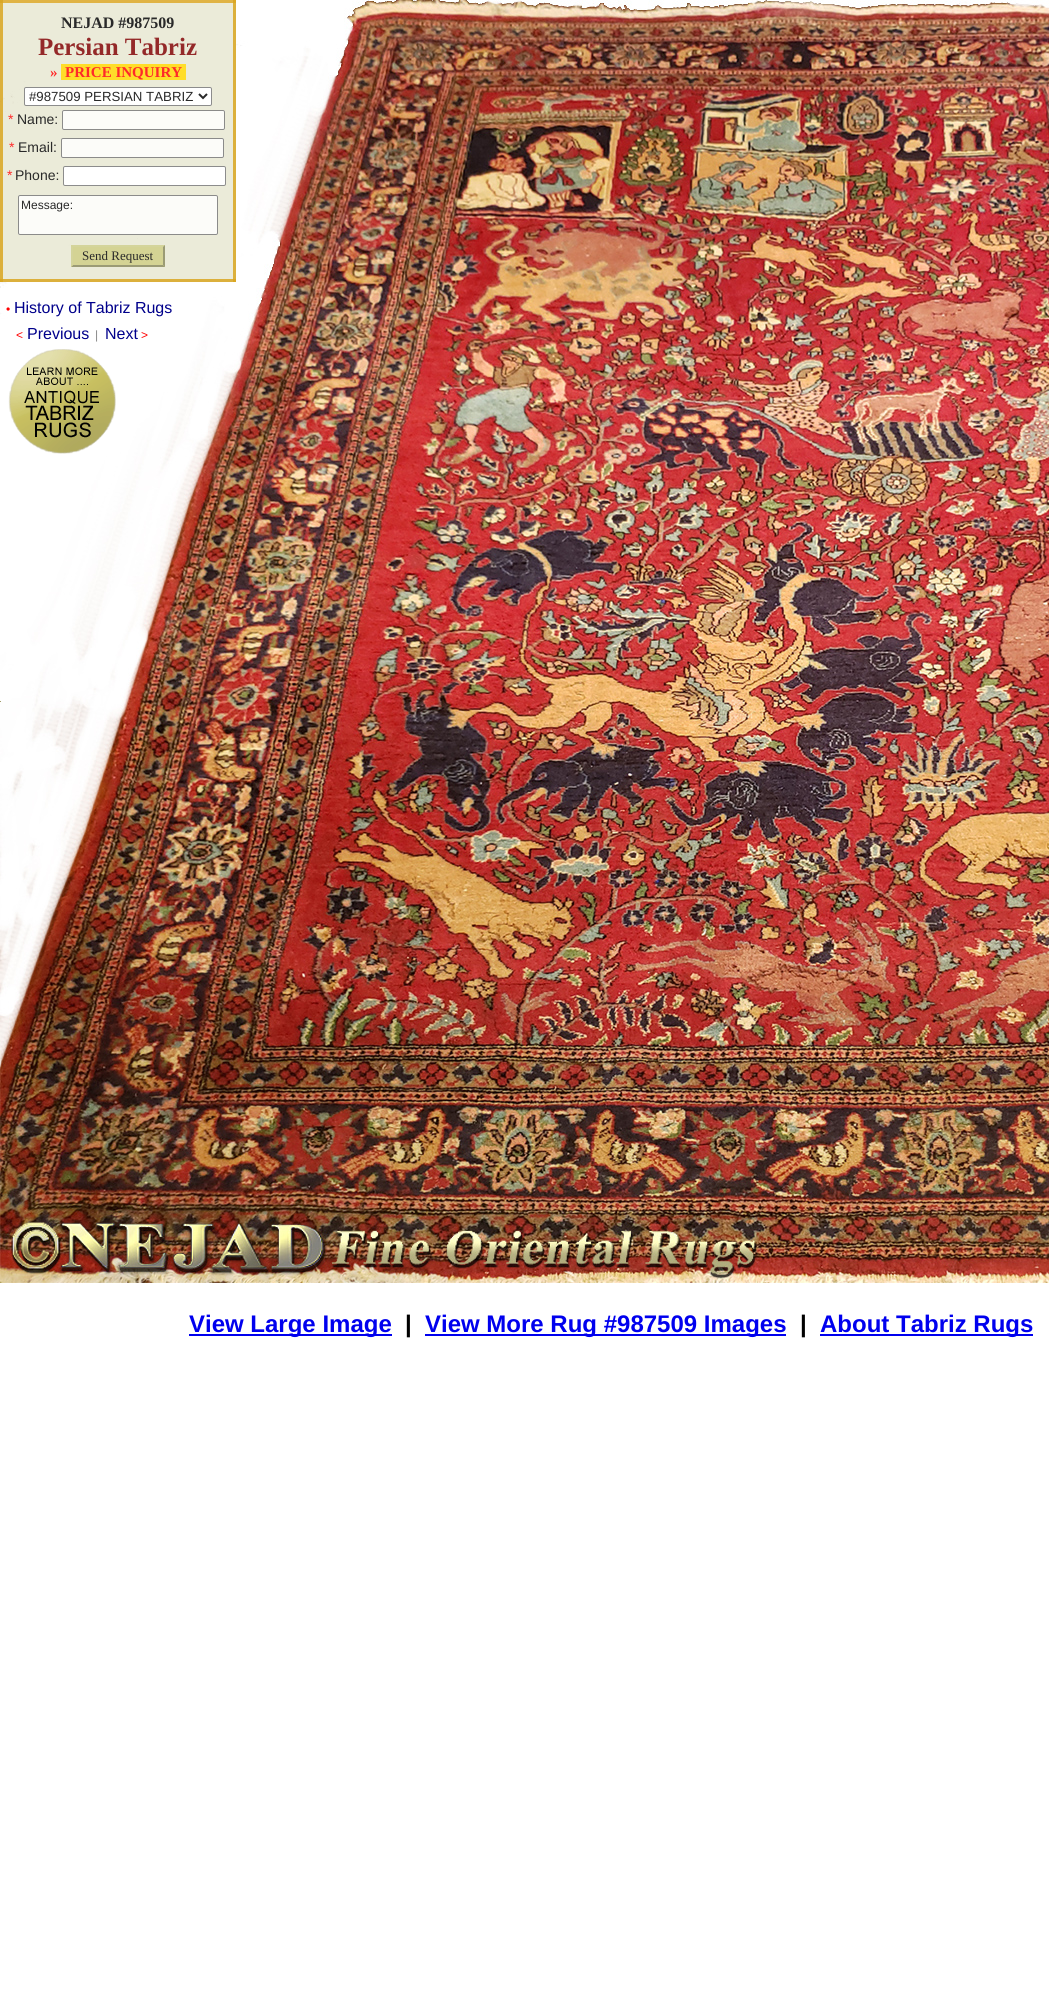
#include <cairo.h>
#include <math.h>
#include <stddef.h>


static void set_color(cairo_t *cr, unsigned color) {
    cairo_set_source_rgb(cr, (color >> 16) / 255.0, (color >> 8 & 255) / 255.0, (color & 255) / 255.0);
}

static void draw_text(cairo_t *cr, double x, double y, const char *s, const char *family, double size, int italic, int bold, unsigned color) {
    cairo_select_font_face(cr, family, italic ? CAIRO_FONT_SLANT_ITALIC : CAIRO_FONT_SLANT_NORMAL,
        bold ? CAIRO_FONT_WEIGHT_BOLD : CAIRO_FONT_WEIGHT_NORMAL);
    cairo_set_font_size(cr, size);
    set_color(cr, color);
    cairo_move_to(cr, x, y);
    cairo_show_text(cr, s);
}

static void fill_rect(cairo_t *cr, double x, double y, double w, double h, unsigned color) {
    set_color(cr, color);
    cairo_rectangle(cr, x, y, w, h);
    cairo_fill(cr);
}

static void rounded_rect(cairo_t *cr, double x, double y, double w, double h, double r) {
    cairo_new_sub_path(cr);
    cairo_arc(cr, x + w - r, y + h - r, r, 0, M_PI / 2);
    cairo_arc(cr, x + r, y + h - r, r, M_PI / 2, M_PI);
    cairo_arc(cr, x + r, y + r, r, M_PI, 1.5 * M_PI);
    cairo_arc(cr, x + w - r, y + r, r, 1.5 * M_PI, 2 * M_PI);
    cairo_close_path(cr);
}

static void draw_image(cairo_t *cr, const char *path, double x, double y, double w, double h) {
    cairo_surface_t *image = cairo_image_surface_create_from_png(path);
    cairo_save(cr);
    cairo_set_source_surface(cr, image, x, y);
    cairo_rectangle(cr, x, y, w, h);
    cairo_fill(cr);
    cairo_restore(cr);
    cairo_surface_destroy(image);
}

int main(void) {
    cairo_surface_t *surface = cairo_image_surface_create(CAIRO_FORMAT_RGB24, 1049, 2003);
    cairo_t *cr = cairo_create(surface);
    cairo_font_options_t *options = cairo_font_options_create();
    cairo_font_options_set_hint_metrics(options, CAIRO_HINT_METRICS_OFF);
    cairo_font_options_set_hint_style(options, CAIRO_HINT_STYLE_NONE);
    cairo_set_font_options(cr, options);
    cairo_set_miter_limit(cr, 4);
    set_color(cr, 0xFFFFFF);
    cairo_paint(cr);
    draw_image(cr, "assets/img1.png", 0, 0, 1049, 1283);
    cairo_set_source_rgba(cr, 0.91, 0.91, 0.827, 0.84);
    cairo_rectangle(cr, 0, 3, 236, 279);
    cairo_fill(cr);
    fill_rect(cr, 0, 0, 236, 3, 0xE0B344);
    cairo_set_source_rgba(cr, 0.855, 0.647, 0.125, 0.84);
    cairo_rectangle(cr, 233, 0, 3, 282);
    cairo_fill(cr);
    cairo_rectangle(cr, 0, 279, 236, 3);
    cairo_fill(cr);
    cairo_rectangle(cr, 0, 0, 3, 282);
    cairo_fill(cr);
    draw_text(cr, 61, 28, "NEJAD #987509", "Liberation Serif", 16, 0, 1, 0x292929);
    draw_text(cr, 38, 55, "Persian Tabriz", "Liberation Serif", 25, 0, 1, 0x942929);
    draw_text(cr, 50, 77, "»", "Liberation Serif", 15, 0, 1, 0xFF2929);
    fill_rect(cr, 61, 64, 125, 16, 0xFFDD29);
    draw_text(cr, 65, 77, "PRICE INQUIRY", "Liberation Serif", 15, 0, 1, 0xFF2929);
    set_color(cr, 0xFFFFFF);
    rounded_rect(cr, 24.5, 87.5, 187, 18, 1.5);
    cairo_fill_preserve(cr);
    set_color(cr, 0x8C8C8C);
    cairo_set_line_width(cr, 1);
    cairo_stroke(cr);
    cairo_new_path(cr);
    cairo_move_to(cr, 199, 94);
    cairo_line_to(cr, 203, 98);
    cairo_line_to(cr, 207, 94);
    set_color(cr, 0x292929);
    cairo_set_line_width(cr, 2);
    cairo_stroke(cr);
    draw_text(cr, 29, 101, "#987509 PERSIAN TABRIZ", "Liberation Sans", 13.25, 0, 0, 0x292929);
    draw_text(cr, 8, 124, "*", "Liberation Sans", 14, 0, 0, 0xFF2929);
    draw_text(cr, 17, 124, "Name:", "Liberation Sans", 14, 0, 0, 0x292929);
    set_color(cr, 0xFCFCF9);
    rounded_rect(cr, 62, 110, 163, 20, 2);
    cairo_fill(cr);
    rounded_rect(cr, 62.5, 110.5, 162, 19, 1.5);
    cairo_set_source_rgba(cr, 0.463, 0.463, 0.463, 0.84);
    cairo_set_line_width(cr, 1);
    cairo_stroke(cr);
    draw_text(cr, 9, 152, "*", "Liberation Sans", 14, 0, 0, 0xFF2929);
    draw_text(cr, 18, 152, "Email:", "Liberation Sans", 14, 0, 0, 0x292929);
    set_color(cr, 0xFCFCF9);
    rounded_rect(cr, 61, 138, 163, 20, 2);
    cairo_fill(cr);
    rounded_rect(cr, 61.5, 138.5, 162, 19, 1.5);
    cairo_set_source_rgba(cr, 0.463, 0.463, 0.463, 0.84);
    cairo_stroke(cr);
    draw_text(cr, 7, 180, "*", "Liberation Sans", 14, 0, 0, 0xFF2929);
    draw_text(cr, 15, 180, "Phone:", "Liberation Sans", 14, 0, 0, 0x292929);
    set_color(cr, 0xFFFFFF);
    rounded_rect(cr, 63.5, 166.5, 162, 19, 1.5);
    cairo_fill_preserve(cr);
    set_color(cr, 0x8C8C8C);
    cairo_stroke(cr);
    set_color(cr, 0xFCFCF9);
    rounded_rect(cr, 18, 195, 200, 40, 2);
    cairo_fill(cr);
    rounded_rect(cr, 18.5, 195.5, 199, 39, 1.5);
    cairo_set_source_rgba(cr, 0.463, 0.463, 0.463, 0.84);
    cairo_stroke(cr);
    draw_text(cr, 21, 209, "Message:", "Liberation Sans", 12, 0, 0, 0x292929);
    fill_rect(cr, 71, 245, 94, 22, 0xD4D394);
    set_color(cr, 0xD4D49B);
    cairo_new_path(cr);
    cairo_move_to(cr, 71, 245);
    cairo_line_to(cr, 165, 245);
    cairo_line_to(cr, 163, 247);
    cairo_line_to(cr, 73, 247);
    cairo_close_path(cr);
    cairo_fill(cr);
    set_color(cr, 0x9B9B75);
    cairo_new_path(cr);
    cairo_move_to(cr, 165, 245);
    cairo_line_to(cr, 165, 267);
    cairo_line_to(cr, 163, 265);
    cairo_line_to(cr, 163, 247);
    cairo_close_path(cr);
    cairo_fill(cr);
    cairo_new_path(cr);
    cairo_move_to(cr, 165, 267);
    cairo_line_to(cr, 71, 267);
    cairo_line_to(cr, 73, 265);
    cairo_line_to(cr, 163, 265);
    cairo_close_path(cr);
    cairo_fill(cr);
    set_color(cr, 0xD4D49B);
    cairo_new_path(cr);
    cairo_move_to(cr, 71, 267);
    cairo_line_to(cr, 71, 245);
    cairo_line_to(cr, 73, 247);
    cairo_line_to(cr, 73, 265);
    cairo_close_path(cr);
    cairo_fill(cr);
    draw_text(cr, 82, 260, "Send Request", "Liberation Serif", 13, 0, 0, 0x292929);
    draw_text(cr, 6, 313, "•", "Liberation Sans", 12, 0, 0, 0xFF0000);
    draw_text(cr, 14, 313, "History of Tabriz Rugs", "Liberation Sans", 16, 0, 0, 0x00008B);
    draw_text(cr, 16, 339, "<", "Liberation Sans", 12, 0, 0, 0xFF0000);
    draw_text(cr, 27, 339, "Previous", "Liberation Sans", 16, 0, 0, 0x00008B);
    draw_text(cr, 95, 339, "|", "Liberation Sans", 12, 0, 0, 0x888888);
    draw_text(cr, 105, 339, "Next", "Liberation Sans", 16, 0, 0, 0x00008B);
    draw_text(cr, 141, 339, ">", "Liberation Sans", 12, 0, 0, 0xFF0000);
    draw_image(cr, "assets/img2.png", 8, 349, 108, 105);
    fill_rect(cr, 0, 701, 1, 1, 0xA29D69);
    fill_rect(cr, 189, 1334, 203, 2, 0x0000EE);
    draw_text(cr, 189, 1332, "View Large Image", "Liberation Sans", 24, 0, 1, 0x0000EE);
    draw_text(cr, 405, 1332, "|", "Liberation Sans", 24, 0, 1, 0x000000);
    fill_rect(cr, 425, 1334, 361, 2, 0x0000EE);
    draw_text(cr, 425, 1332, "View More Rug #987509 Images", "Liberation Sans", 24, 0, 1, 0x0000EE);
    draw_text(cr, 800, 1332, "|", "Liberation Sans", 24, 0, 1, 0x000000);
    fill_rect(cr, 820, 1334, 213, 2, 0x0000EE);
    draw_text(cr, 820, 1332, "About Tabriz Rugs", "Liberation Sans", 24, 0, 1, 0x0000EE);
    cairo_surface_write_to_png(surface, "output.png");
    cairo_font_options_destroy(options);
    cairo_destroy(cr);
    cairo_surface_destroy(surface);
    return 0;
}
